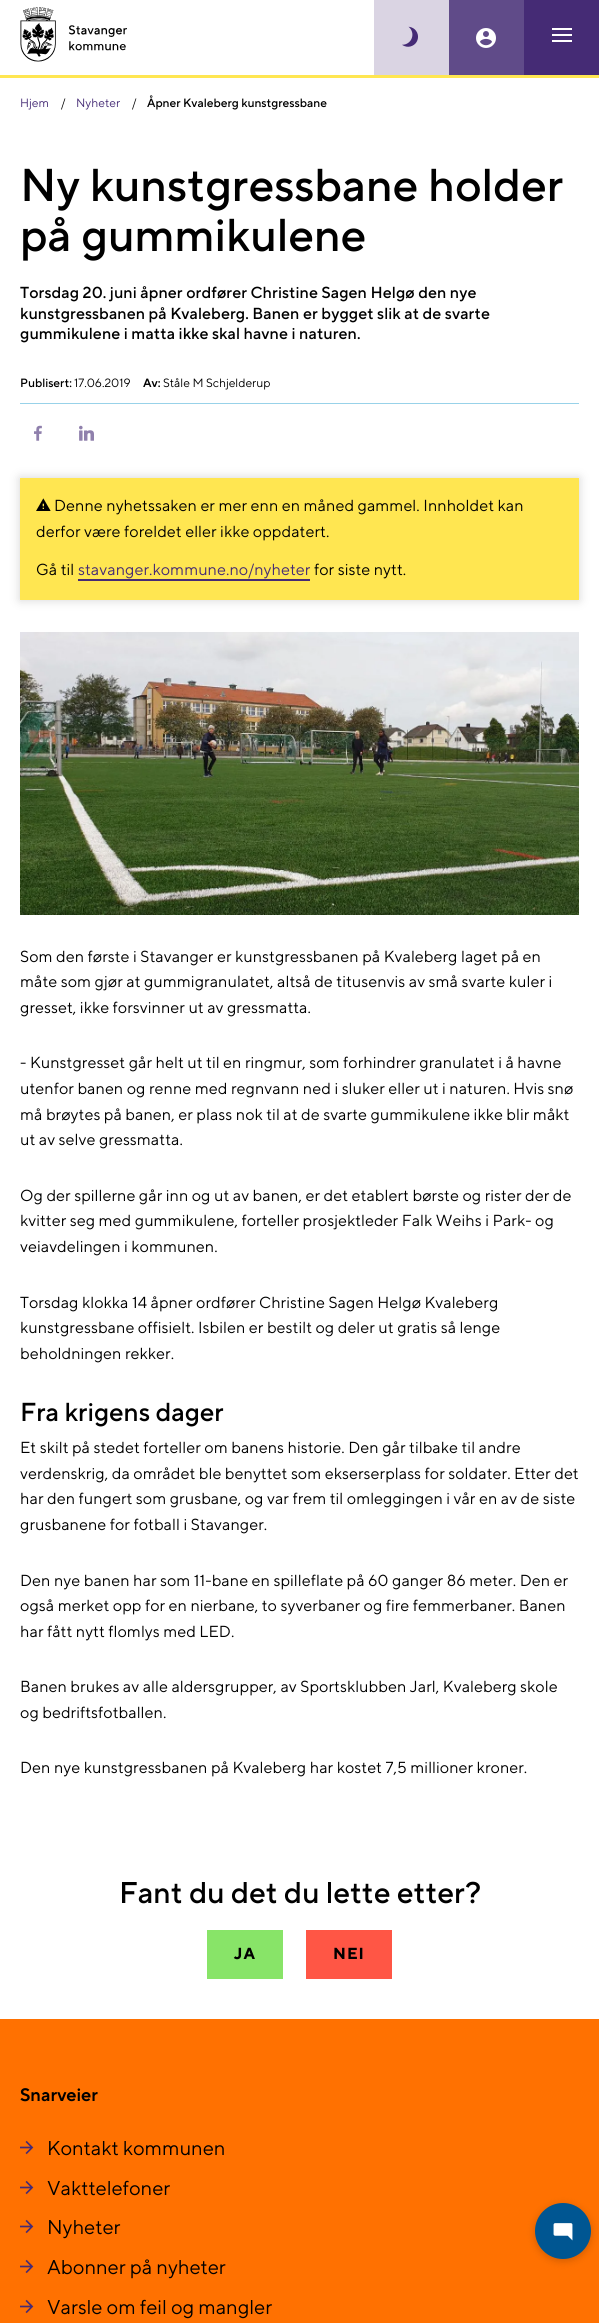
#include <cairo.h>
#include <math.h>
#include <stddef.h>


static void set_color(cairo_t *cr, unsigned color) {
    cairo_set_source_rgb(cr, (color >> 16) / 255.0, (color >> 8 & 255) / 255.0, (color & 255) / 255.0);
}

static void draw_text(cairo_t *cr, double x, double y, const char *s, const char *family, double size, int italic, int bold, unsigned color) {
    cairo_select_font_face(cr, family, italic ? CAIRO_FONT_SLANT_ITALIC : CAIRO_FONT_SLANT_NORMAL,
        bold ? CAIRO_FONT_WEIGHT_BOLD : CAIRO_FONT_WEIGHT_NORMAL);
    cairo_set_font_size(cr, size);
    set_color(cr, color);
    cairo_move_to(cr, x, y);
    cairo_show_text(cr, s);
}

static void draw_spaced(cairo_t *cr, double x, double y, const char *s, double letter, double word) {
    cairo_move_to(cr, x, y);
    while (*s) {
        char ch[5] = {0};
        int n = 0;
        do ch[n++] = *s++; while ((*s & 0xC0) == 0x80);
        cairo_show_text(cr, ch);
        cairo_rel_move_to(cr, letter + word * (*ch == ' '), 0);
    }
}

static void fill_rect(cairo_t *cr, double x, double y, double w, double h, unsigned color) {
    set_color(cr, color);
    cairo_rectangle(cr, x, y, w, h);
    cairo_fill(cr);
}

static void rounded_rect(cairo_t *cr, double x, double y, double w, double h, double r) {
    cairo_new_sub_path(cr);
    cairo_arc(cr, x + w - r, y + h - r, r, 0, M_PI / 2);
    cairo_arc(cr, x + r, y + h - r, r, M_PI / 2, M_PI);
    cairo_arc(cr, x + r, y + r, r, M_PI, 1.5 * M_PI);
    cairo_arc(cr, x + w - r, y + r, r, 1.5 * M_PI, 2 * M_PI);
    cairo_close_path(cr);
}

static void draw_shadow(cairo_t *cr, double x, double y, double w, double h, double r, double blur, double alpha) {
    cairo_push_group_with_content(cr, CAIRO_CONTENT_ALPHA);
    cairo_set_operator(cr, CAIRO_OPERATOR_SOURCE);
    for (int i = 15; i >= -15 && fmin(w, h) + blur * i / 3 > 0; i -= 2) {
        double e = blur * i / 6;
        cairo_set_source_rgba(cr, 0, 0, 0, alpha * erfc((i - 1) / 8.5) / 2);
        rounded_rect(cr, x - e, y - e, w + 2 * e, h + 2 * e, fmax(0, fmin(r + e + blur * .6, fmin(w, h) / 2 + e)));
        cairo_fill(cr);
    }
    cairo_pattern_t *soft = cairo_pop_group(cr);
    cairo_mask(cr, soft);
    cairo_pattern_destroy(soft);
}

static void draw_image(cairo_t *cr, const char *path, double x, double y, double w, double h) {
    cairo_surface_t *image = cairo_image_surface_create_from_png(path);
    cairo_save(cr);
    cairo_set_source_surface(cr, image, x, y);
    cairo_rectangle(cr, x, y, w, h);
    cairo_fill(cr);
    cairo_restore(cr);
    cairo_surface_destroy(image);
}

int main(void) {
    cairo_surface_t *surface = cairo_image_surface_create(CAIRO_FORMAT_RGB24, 599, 2323);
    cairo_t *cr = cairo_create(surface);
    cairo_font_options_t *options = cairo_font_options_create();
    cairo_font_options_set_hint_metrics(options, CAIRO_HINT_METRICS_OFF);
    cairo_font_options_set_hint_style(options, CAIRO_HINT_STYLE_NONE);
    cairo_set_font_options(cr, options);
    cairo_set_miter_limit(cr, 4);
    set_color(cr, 0xFFFFFF);
    cairo_paint(cr);
    fill_rect(cr, 0, 75, 599, 3, 0xFFE651);
    draw_image(cr, "assets/img1.png", 20, 7, 107, 55);
    fill_rect(cr, 374, 0, 75, 75, 0xDAD4E3);
    draw_image(cr, "assets/img2.png", 402, 26, 16, 21);
    fill_rect(cr, 449, 0, 75, 75, 0x604B89);
    draw_image(cr, "assets/img3.png", 476, 28, 20, 20);
    fill_rect(cr, 524, 0, 75, 75, 0x452B75);
    fill_rect(cr, 552, 34, 20, 2, 0xFFFFFF);
    fill_rect(cr, 552, 28, 20, 2, 0xFFFFFF);
    fill_rect(cr, 552, 40, 20, 2, 0xFFFFFF);
    draw_text(cr, 20, 107, "Hjem", "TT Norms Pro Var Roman", 12, 0, 0, 0x452B75);
    draw_text(cr, 61, 107, "/", "TT Norms Pro Var Roman", 12, 0, 0, 0x000000);
    draw_text(cr, 76, 107, "Nyheter", "TT Norms Pro Var Roman", 12, 0, 0, 0x452B75);
    draw_text(cr, 132, 107, "/", "TT Norms Pro Var Roman", 12, 0, 0, 0x000000);
    draw_text(cr, 147, 107, "Åpner Kvaleberg kunstgressbane", "TT Norms Pro Var Roman Medium", 12, 0, 0, 0x000000);
    draw_text(cr, 20, 201, "Ny kunstgressbane holder", "TT Norms Pro Var Roman Medium", 46, 0, 0, 0x000000);
    draw_text(cr, 20, 251, "på gummikulene", "TT Norms Pro Var Roman Medium", 46, 0, 0, 0x000000);
    cairo_set_font_size(cr, 16);
    draw_spaced(cr, 20, 298, "Torsdag 20. juni åpner ordfører Christine Sagen Helgø den nye", 0.1, 0);
    draw_spaced(cr, 20, 319, "kunstgressbanen på Kvaleberg. Banen er bygget slik at de svarte", 0.1, 0);
    draw_spaced(cr, 20, 339, "gummikulene i matta ikke skal havne i naturen.", 0.1, 0);
    fill_rect(cr, 20, 403, 559, 1, 0x98D2E9);
    draw_text(cr, 20, 387, "Publisert:", "TT Norms Pro Var Roman Medium", 12, 0, 0, 0x000000);
    draw_text(cr, 74, 387, "17.06.2019", "TT Norms Pro Var Roman", 12, 0, 0, 0x000000);
    draw_text(cr, 143, 387, "Av:", "TT Norms Pro Var Roman SemiBold", 12, 0, 0, 0x000000);
    draw_text(cr, 163, 387, "Ståle M Schjelderup", "TT Norms Pro Var Roman", 12, 0, 0, 0x000000);
    draw_image(cr, "assets/img4.png", 34, 425, 8, 16);
    draw_image(cr, "assets/img5.png", 79, 425, 15, 16);
    set_color(cr, 0xD4D4D4);
    draw_shadow(cr, 20, 478, 559, 122, 0, 5, 1);
    fill_rect(cr, 20, 478, 559, 122, 0xFFE651);
    draw_image(cr, "assets/img6.png", 36, 498, 15, 13);
    cairo_set_font_size(cr, 16);
    set_color(cr, 0x000000);
    draw_spaced(cr, 54, 511, "Denne nyhetssaken er mer enn en måned gammel. Innholdet kan", 0.1, 0);
    draw_spaced(cr, 36, 537, "derfor være foreldet eller ikke oppdatert.", 0.1, 0);
    draw_spaced(cr, 36, 575, "Gå til", 0.1, 0);
    set_color(cr, 0x452B75);
    draw_spaced(cr, 78, 575, "stavanger.kommune.no/nyheter", 0.1, 0);
    fill_rect(cr, 78, 579, 232, 2, 0x452B75);
    set_color(cr, 0x000000);
    draw_spaced(cr, 314, 575, "for siste nytt.", 0.1, 0);
    draw_image(cr, "assets/img7.png", 20, 632, 559, 283);
    draw_spaced(cr, 20, 962, "Som den første i Stavanger er kunstgressbanen på Kvaleberg laget på en", 0.1, 0);
    draw_spaced(cr, 20, 987, "måte som gjør at gummigranulatet, altså de titusenvis av små svarte kuler i", 0.1, 0);
    draw_spaced(cr, 20, 1013, "gresset, ikke forsvinner ut av gressmatta.", 0.1, 0);
    draw_spaced(cr, 20, 1068, "- Kunstgresset går helt ut til en ringmur, som forhindrer granulatet i å havne", 0.1, 0);
    draw_spaced(cr, 20, 1094, "utenfor banen og renne med regnvann ned i sluker eller ut i naturen. Hvis snø", 0.1, 0);
    draw_spaced(cr, 20, 1120, "må brøytes på banen, er plass nok til at de svarte gummikulene ikke blir måkt", 0.1, 0);
    draw_spaced(cr, 20, 1145, "ut av selve gressmatta.", 0.1, 0);
    draw_spaced(cr, 20, 1201, "Og der spillerne går inn og ut av banen, er det etablert børste og rister der de", 0.1, 0);
    draw_spaced(cr, 20, 1226, "kvitter seg med gummikulene, forteller prosjektleder Falk Weihs i Park- og", 0.1, 0);
    draw_spaced(cr, 20, 1252, "veiavdelingen i kommunen.", 0.1, 0);
    draw_spaced(cr, 20, 1308, "Torsdag klokka 14 åpner ordfører Christine Sagen Helgø Kvaleberg", 0.1, 0);
    draw_spaced(cr, 20, 1333, "kunstgressbane offisielt. Isbilen er bestilt og deler ut gratis så lenge", 0.1, 0);
    draw_spaced(cr, 20, 1359, "beholdningen rekker.", 0.1, 0);
    draw_text(cr, 20, 1421, "Fra krigens dager", "TT Norms Pro Var Roman Medium", 26, 0, 0, 0x000000);
    cairo_select_font_face(cr, "TT Norms Pro Var Roman", CAIRO_FONT_SLANT_NORMAL, CAIRO_FONT_WEIGHT_NORMAL);
    cairo_set_font_size(cr, 16);
    draw_spaced(cr, 20, 1453, "Et skilt på stedet forteller om banens historie. Den går tilbake til andre", 0.1, 0);
    draw_spaced(cr, 20, 1479, "verdenskrig, da området ble benyttet som ekserserplass for soldater. Etter det", 0.1, 0);
    draw_spaced(cr, 20, 1504, "har den fungert som grusbane, og var frem til omleggingen i vår en av de siste", 0.1, 0);
    draw_spaced(cr, 20, 1530, "grusbanene for fotball i Stavanger.", 0.1, 0);
    draw_spaced(cr, 20, 1586, "Den nye banen har som 11-bane en spilleflate på 60 ganger 86 meter. Den er", 0.1, 0);
    draw_spaced(cr, 20, 1611, "også merket opp for en nierbane, to syverbaner og fire femmerbaner. Banen", 0.1, 0);
    draw_spaced(cr, 20, 1637, "har fått nytt flomlys med LED.", 0.1, 0);
    draw_spaced(cr, 20, 1692, "Banen brukes av alle aldersgrupper, av Sportsklubben Jarl, Kvaleberg skole", 0.1, 0);
    draw_spaced(cr, 20, 1718, "og bedriftsfotballen.", 0.1, 0);
    draw_spaced(cr, 20, 1773, "Den nye kunstgressbanen på Kvaleberg har kostet 7,5 millioner kroner.", 0.1, 0);
    draw_text(cr, 119, 1903, "Fant du det du lette etter?", "TT Norms Pro Var Roman Medium", 30, 0, 0, 0x000000);
    fill_rect(cr, 207, 1930, 76, 49, 0x88E468);
    cairo_select_font_face(cr, "TT Norms Pro Var Roman", CAIRO_FONT_SLANT_NORMAL, CAIRO_FONT_WEIGHT_BOLD);
    cairo_set_font_size(cr, 16);
    set_color(cr, 0x000000);
    draw_spaced(cr, 234, 1959, "JA", 1, 0);
    fill_rect(cr, 306, 1930, 86, 49, 0xFF5645);
    set_color(cr, 0x000000);
    draw_spaced(cr, 333, 1959, "NEI", 1, 0);
    fill_rect(cr, 0, 2019, 599, 304, 0xFF7101);
    draw_text(cr, 20, 2101, "Snarveier", "TT Norms Pro Var Roman SemiBold", 18, 0, 0, 0x000000);
    draw_image(cr, "assets/img8.png", 20, 2140, 14, 15);
    draw_text(cr, 47, 2155, "Kontakt kommunen", "TT Norms Pro Var Roman", 20, 0, 0, 0x000000);
    draw_image(cr, "assets/img8.png", 20, 2180, 14, 15);
    draw_text(cr, 47, 2195, "Vakttelefoner", "TT Norms Pro Var Roman", 20, 0, 0, 0x000000);
    draw_image(cr, "assets/img8.png", 20, 2219, 14, 15);
    draw_text(cr, 47, 2234, "Nyheter", "TT Norms Pro Var Roman", 20, 0, 0, 0x000000);
    draw_image(cr, "assets/img8.png", 20, 2259, 14, 15);
    draw_text(cr, 47, 2274, "Abonner på nyheter", "TT Norms Pro Var Roman", 20, 0, 0, 0x000000);
    draw_image(cr, "assets/img8.png", 20, 2299, 14, 15);
    draw_text(cr, 47, 2314, "Varsle om feil og mangler", "TT Norms Pro Var Roman", 20, 0, 0, 0x000000);
    set_color(cr, 0x000000);
    draw_shadow(cr, 535, 2205, 56, 56, 28, 4, 0.18);
    set_color(cr, 0x005692);
    cairo_arc(cr, 563, 2231, 28, 0, 2 * M_PI);
    cairo_fill(cr);
    draw_image(cr, "assets/img9.png", 553, 2223, 20, 18);
    cairo_surface_write_to_png(surface, "output.png");
    cairo_font_options_destroy(options);
    cairo_destroy(cr);
    cairo_surface_destroy(surface);
    return 0;
}
